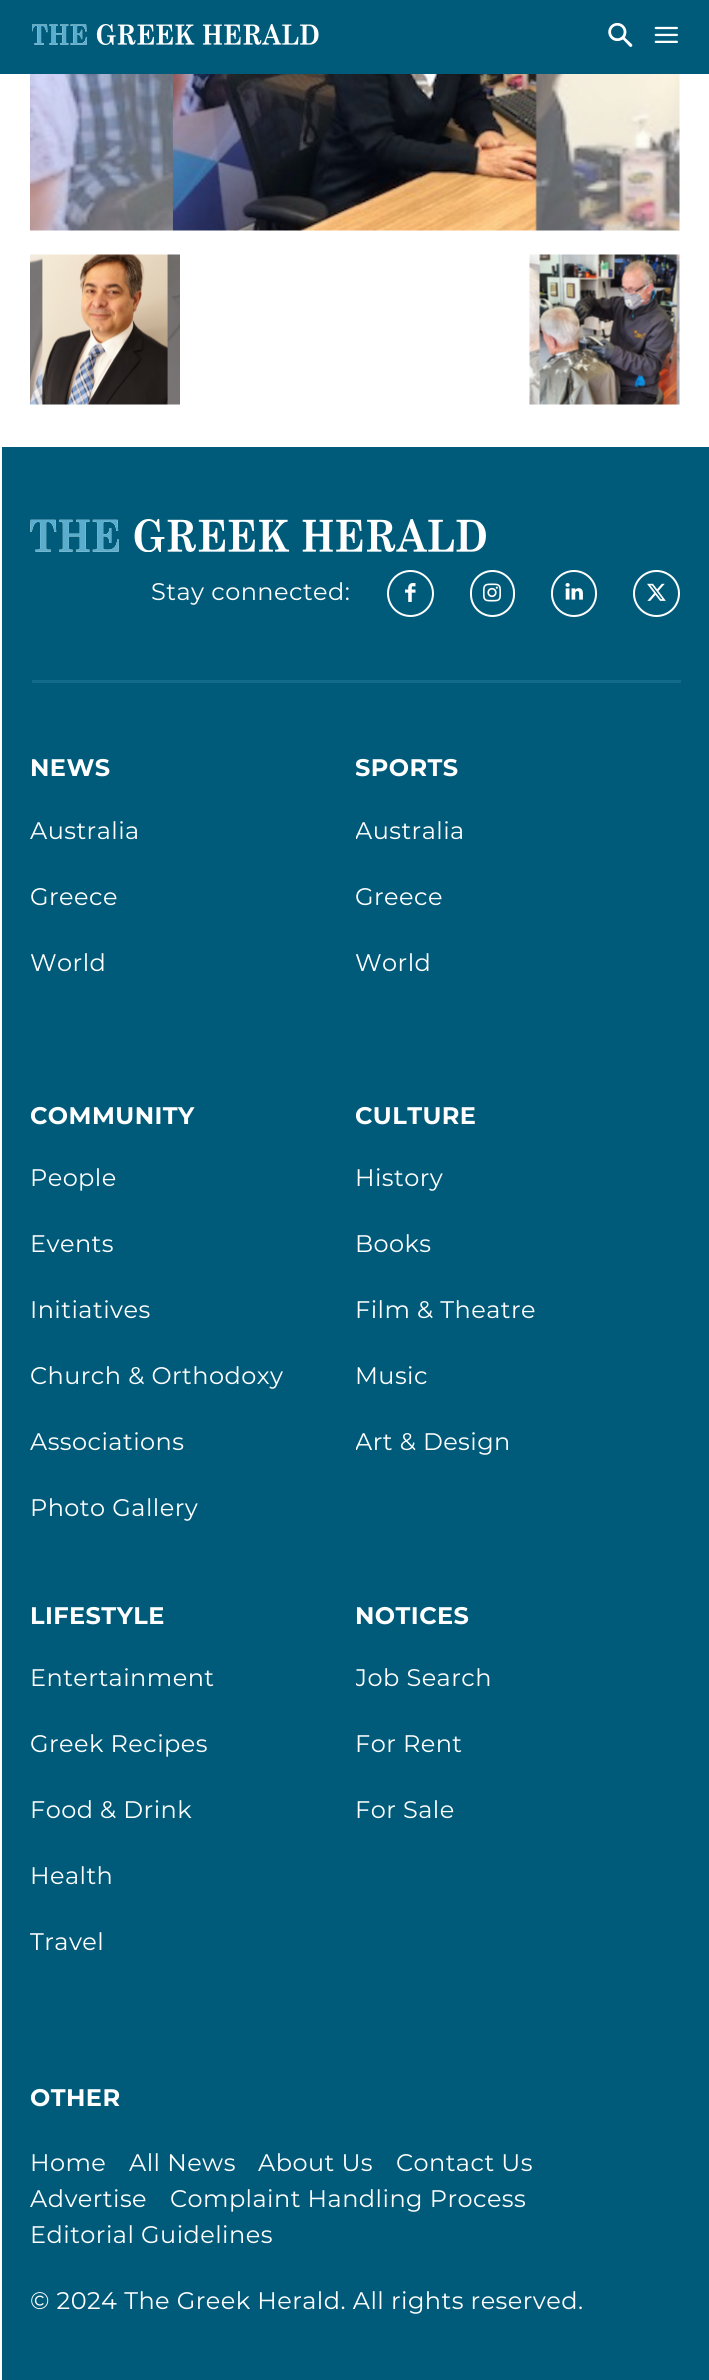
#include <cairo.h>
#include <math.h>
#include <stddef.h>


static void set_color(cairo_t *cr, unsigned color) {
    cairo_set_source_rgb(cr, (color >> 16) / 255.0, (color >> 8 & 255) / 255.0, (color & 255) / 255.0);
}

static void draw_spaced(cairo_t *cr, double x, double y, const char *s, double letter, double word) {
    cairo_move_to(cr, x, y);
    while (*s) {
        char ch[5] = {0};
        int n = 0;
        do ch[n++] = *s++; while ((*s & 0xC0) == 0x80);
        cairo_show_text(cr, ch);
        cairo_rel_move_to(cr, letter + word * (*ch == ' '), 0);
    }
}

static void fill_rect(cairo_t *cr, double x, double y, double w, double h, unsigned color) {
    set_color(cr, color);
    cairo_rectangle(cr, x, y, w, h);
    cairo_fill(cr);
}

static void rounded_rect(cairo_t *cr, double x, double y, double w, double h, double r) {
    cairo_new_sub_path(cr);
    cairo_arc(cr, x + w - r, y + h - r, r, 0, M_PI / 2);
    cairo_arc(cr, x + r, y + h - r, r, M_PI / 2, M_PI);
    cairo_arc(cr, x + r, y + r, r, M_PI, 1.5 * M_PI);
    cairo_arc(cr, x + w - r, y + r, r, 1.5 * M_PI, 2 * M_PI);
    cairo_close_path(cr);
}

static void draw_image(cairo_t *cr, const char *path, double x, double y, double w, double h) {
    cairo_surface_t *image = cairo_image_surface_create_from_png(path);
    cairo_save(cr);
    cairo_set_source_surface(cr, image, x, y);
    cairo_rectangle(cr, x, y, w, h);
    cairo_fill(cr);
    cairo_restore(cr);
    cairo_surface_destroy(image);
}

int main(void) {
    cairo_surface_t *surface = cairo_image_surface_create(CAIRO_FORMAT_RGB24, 709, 2380);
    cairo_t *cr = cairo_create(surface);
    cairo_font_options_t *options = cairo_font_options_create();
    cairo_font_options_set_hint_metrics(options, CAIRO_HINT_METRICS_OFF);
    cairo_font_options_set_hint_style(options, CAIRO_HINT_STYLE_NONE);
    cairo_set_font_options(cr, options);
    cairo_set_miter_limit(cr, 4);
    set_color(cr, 0xFFFFFF);
    cairo_paint(cr);
    fill_rect(cr, 0, 0, 709, 74, 0x005B7A);
    draw_image(cr, "assets/img1.png", 32, 24, 287, 21);
    draw_image(cr, "assets/img2.png", 608, 22, 25, 25);
    draw_image(cr, "assets/img3.png", 654, 26, 24, 17);
    draw_image(cr, "assets/img4.png", 30, 74, 650, 157);
    draw_image(cr, "assets/img5.png", 30, 254, 150, 151);
    draw_image(cr, "assets/img6.png", 529, 254, 151, 151);
    fill_rect(cr, 2, 447, 707, 1933, 0x005B7A);
    draw_image(cr, "assets/img7.png", 30, 519, 456, 33);
    cairo_select_font_face(cr, "Montserrat", CAIRO_FONT_SLANT_NORMAL, CAIRO_FONT_WEIGHT_NORMAL);
    cairo_set_font_size(cr, 24);
    set_color(cr, 0xFFFFFF);
    draw_spaced(cr, 151, 600, "Stay connected:", 0.45, 0);
    cairo_new_path(cr);
    cairo_arc(cr, 410.5, 593.5, 22.5, 0, 2 * M_PI);
    cairo_stroke(cr);
    draw_image(cr, "assets/img8.png", 405, 583, 11, 19);
    rounded_rect(cr, 471, 571, 43, 45, 21.5);
    cairo_stroke(cr);
    draw_image(cr, "assets/img9.png", 483, 583, 18, 19);
    rounded_rect(cr, 552, 571, 44, 45, 22);
    cairo_stroke(cr);
    draw_image(cr, "assets/img10.png", 565, 583, 18, 17);
    cairo_arc(cr, 656.5, 593.5, 22.5, 0, 2 * M_PI);
    cairo_stroke(cr);
    draw_image(cr, "assets/img11.png", 647, 583, 19, 18);
    fill_rect(cr, 32, 680, 649, 3, 0x126B8B);
    cairo_select_font_face(cr, "Montserrat", CAIRO_FONT_SLANT_NORMAL, CAIRO_FONT_WEIGHT_BOLD);
    set_color(cr, 0xFFFFFF);
    draw_spaced(cr, 30, 776, "NEWS", 0.45, 0);
    cairo_select_font_face(cr, "Montserrat", CAIRO_FONT_SLANT_NORMAL, CAIRO_FONT_WEIGHT_NORMAL);
    draw_spaced(cr, 30, 839, "Australia", 0.45, 0);
    draw_spaced(cr, 30, 905, "Greece", 0.45, 0);
    draw_spaced(cr, 30, 971, "World", 0.45, 0);
    cairo_save(cr);
    cairo_rectangle(cr, 356, 755, 324, 256);
    cairo_clip(cr);
    cairo_select_font_face(cr, "Montserrat", CAIRO_FONT_SLANT_NORMAL, CAIRO_FONT_WEIGHT_BOLD);
    draw_spaced(cr, 355, 776, "SPORTS", 0.45, 0);
    cairo_select_font_face(cr, "Montserrat", CAIRO_FONT_SLANT_NORMAL, CAIRO_FONT_WEIGHT_NORMAL);
    draw_spaced(cr, 355, 839, "Australia", 0.45, 0);
    cairo_restore(cr);
    draw_spaced(cr, 355, 905, "Greece", 0.45, 0);
    draw_spaced(cr, 355, 971, "World", 0.45, 0);
    cairo_select_font_face(cr, "Montserrat", CAIRO_FONT_SLANT_NORMAL, CAIRO_FONT_WEIGHT_BOLD);
    draw_spaced(cr, 30, 1124, "COMMUNITY", 0.45, 0);
    cairo_select_font_face(cr, "Montserrat", CAIRO_FONT_SLANT_NORMAL, CAIRO_FONT_WEIGHT_NORMAL);
    draw_spaced(cr, 30, 1186, "People", 0.45, 0);
    draw_spaced(cr, 30, 1252, "Events", 0.45, 0);
    draw_spaced(cr, 30, 1318, "Initiatives", 0.45, 0);
    draw_spaced(cr, 30, 1384, "Church & Orthodoxy", 0.45, 0);
    draw_spaced(cr, 30, 1450, "Associations", 0.45, 0);
    draw_spaced(cr, 30, 1516, "Photo Gallery", 0.45, 0);
    cairo_save(cr);
    cairo_rectangle(cr, 356, 1101, 324, 390);
    cairo_clip(cr);
    cairo_select_font_face(cr, "Montserrat", CAIRO_FONT_SLANT_NORMAL, CAIRO_FONT_WEIGHT_BOLD);
    draw_spaced(cr, 355, 1124, "CULTURE", 0.45, 0);
    cairo_restore(cr);
    draw_spaced(cr, 355, 1186, "History", 0.45, 0);
    draw_spaced(cr, 355, 1252, "Books", 0.45, 0);
    draw_spaced(cr, 355, 1318, "Film & Theatre", 0.45, 0);
    draw_spaced(cr, 355, 1384, "Music", 0.45, 0);
    cairo_save(cr);
    cairo_rectangle(cr, 356, 1101, 324, 390);
    cairo_clip(cr);
    draw_spaced(cr, 355, 1450, "Art & Design", 0.45, 0);
    cairo_restore(cr);
    cairo_select_font_face(cr, "Montserrat", CAIRO_FONT_SLANT_NORMAL, CAIRO_FONT_WEIGHT_BOLD);
    draw_spaced(cr, 30, 1624, "LIFESTYLE", 0.45, 0);
    cairo_select_font_face(cr, "Montserrat", CAIRO_FONT_SLANT_NORMAL, CAIRO_FONT_WEIGHT_NORMAL);
    draw_spaced(cr, 30, 1686, "Entertainment", 0.45, 0);
    draw_spaced(cr, 30, 1752, "Greek Recipes", 0.45, 0);
    draw_spaced(cr, 30, 1818, "Food & Drink", 0.45, 0);
    draw_spaced(cr, 30, 1884, "Health", 0.45, 0);
    draw_spaced(cr, 30, 1950, "Travel", 0.45, 0);
    cairo_select_font_face(cr, "Montserrat", CAIRO_FONT_SLANT_NORMAL, CAIRO_FONT_WEIGHT_BOLD);
    draw_spaced(cr, 355, 1624, "NOTICES", 0.45, 0);
    cairo_save(cr);
    cairo_rectangle(cr, 356, 1602, 324, 257);
    cairo_clip(cr);
    cairo_select_font_face(cr, "Montserrat", CAIRO_FONT_SLANT_NORMAL, CAIRO_FONT_WEIGHT_NORMAL);
    draw_spaced(cr, 355, 1686, "Job Search", 0.45, 0);
    cairo_restore(cr);
    cairo_select_font_face(cr, "Montserrat", CAIRO_FONT_SLANT_NORMAL, CAIRO_FONT_WEIGHT_NORMAL);
    draw_spaced(cr, 355, 1752, "For Rent", 0.45, 0);
    draw_spaced(cr, 355, 1818, "For Sale", 0.45, 0);
    cairo_select_font_face(cr, "Montserrat", CAIRO_FONT_SLANT_NORMAL, CAIRO_FONT_WEIGHT_BOLD);
    draw_spaced(cr, 30, 2106, "OTHER", 0.45, 0);
    cairo_select_font_face(cr, "Montserrat", CAIRO_FONT_SLANT_NORMAL, CAIRO_FONT_WEIGHT_NORMAL);
    draw_spaced(cr, 30, 2171, "Home", 0.45, 0);
    draw_spaced(cr, 129, 2171, "All News", 0.45, 0);
    draw_spaced(cr, 258, 2171, "About Us", 0.45, 0);
    draw_spaced(cr, 396, 2171, "Contact Us", 0.45, 0);
    draw_spaced(cr, 30, 2207, "Advertise", 0.45, 0);
    draw_spaced(cr, 170, 2207, "Complaint Handling Process", 0.45, 0);
    draw_spaced(cr, 30, 2243, "Editorial Guidelines", 0.45, 0);
    draw_spaced(cr, 30, 2309, "© 2024 The Greek Herald. All rights reserved.", 0.45, 0);
    cairo_surface_write_to_png(surface, "output.png");
    cairo_font_options_destroy(options);
    cairo_destroy(cr);
    cairo_surface_destroy(surface);
    return 0;
}
